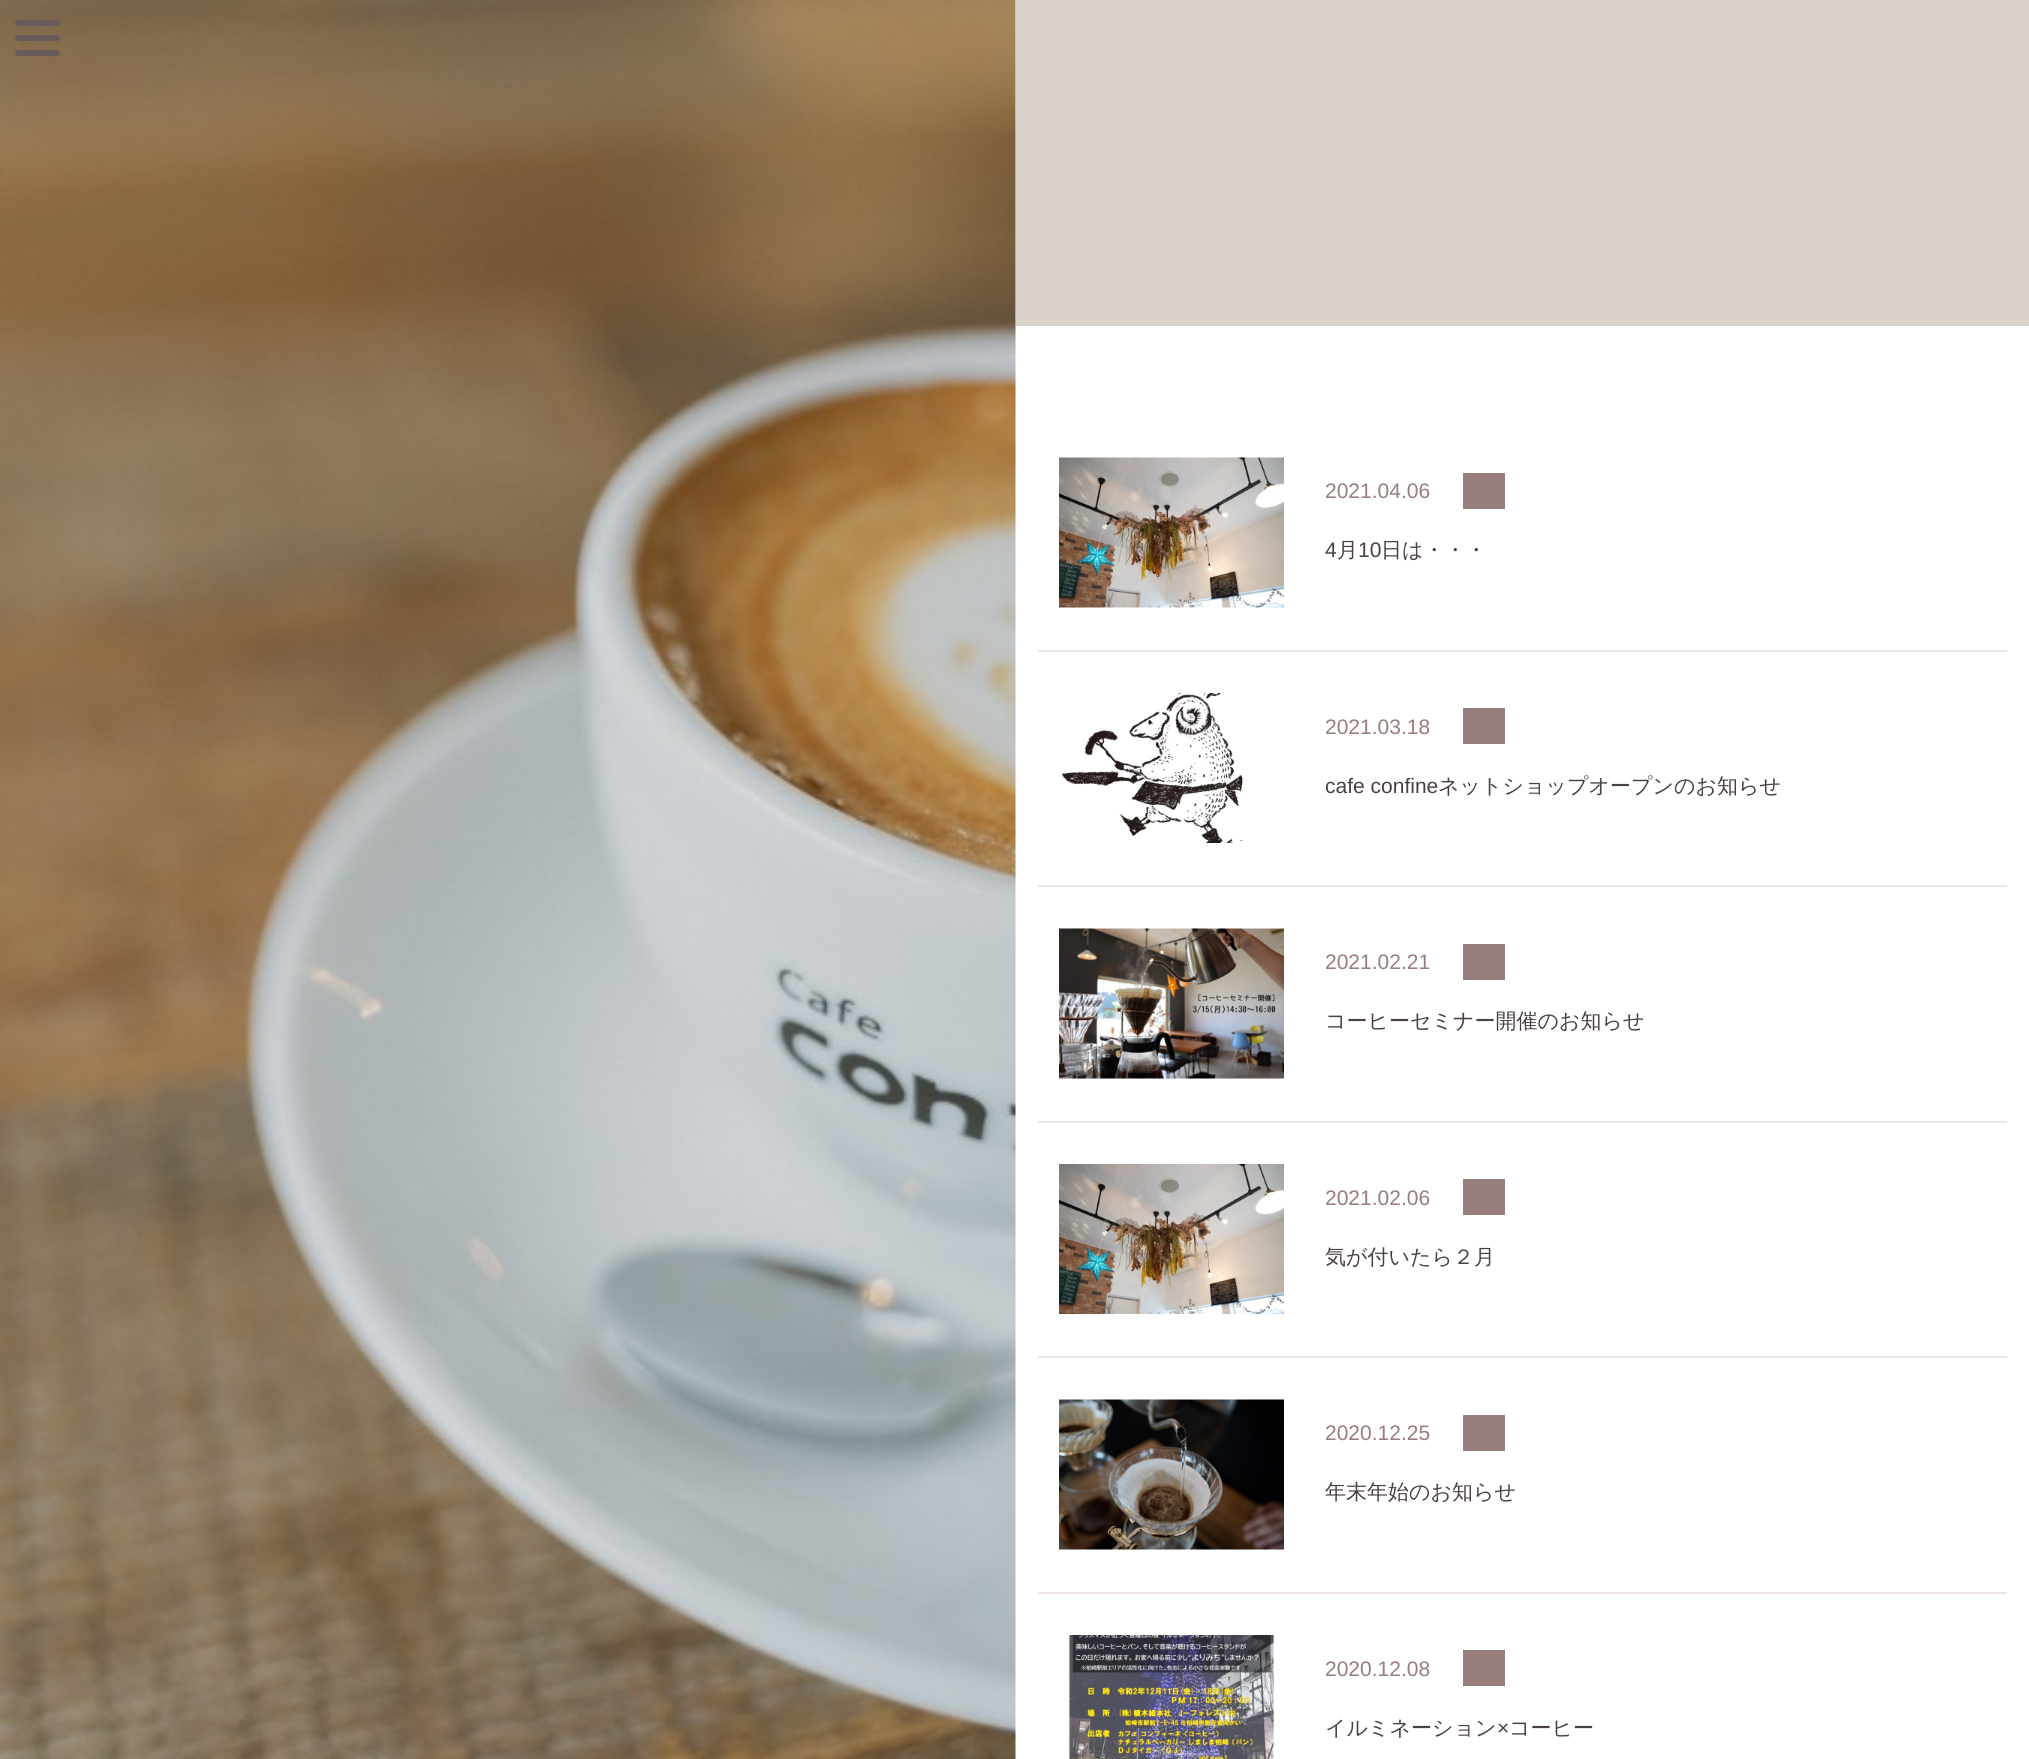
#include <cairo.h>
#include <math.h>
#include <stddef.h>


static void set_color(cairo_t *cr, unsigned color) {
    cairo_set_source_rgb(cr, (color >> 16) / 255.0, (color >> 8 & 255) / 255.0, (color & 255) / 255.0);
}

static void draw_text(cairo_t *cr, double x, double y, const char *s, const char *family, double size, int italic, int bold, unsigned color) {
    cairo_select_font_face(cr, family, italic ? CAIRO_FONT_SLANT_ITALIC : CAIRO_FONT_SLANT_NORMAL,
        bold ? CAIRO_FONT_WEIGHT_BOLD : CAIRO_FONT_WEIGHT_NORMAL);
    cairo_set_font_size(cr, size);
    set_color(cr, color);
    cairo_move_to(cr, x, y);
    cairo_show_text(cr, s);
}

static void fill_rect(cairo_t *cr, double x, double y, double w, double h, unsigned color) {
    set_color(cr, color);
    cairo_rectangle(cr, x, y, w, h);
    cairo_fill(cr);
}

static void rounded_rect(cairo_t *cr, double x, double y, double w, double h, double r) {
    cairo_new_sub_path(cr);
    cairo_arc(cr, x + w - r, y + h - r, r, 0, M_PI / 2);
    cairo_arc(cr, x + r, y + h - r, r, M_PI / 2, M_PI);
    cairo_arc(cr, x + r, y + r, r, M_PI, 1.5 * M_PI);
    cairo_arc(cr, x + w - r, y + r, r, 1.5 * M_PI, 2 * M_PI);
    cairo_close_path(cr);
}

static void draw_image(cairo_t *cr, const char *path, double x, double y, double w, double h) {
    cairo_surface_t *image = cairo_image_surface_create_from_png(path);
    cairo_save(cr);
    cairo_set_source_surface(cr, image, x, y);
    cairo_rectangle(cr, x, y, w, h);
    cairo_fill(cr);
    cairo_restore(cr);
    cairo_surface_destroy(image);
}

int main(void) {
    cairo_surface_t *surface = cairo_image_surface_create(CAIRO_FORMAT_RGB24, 2029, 1759);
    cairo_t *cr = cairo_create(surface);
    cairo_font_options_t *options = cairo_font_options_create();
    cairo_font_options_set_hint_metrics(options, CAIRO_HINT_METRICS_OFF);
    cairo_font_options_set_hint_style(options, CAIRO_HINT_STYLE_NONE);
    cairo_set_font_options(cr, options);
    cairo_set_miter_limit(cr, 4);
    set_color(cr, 0xFFFFFF);
    cairo_paint(cr);
    draw_image(cr, "assets/img1.png", 0, 0, 1016, 1759);
    set_color(cr, 0x6A5B5B);
    rounded_rect(cr, 15, 35, 45, 6, 3);
    cairo_fill(cr);
    rounded_rect(cr, 15, 20, 45, 6, 3);
    cairo_fill(cr);
    rounded_rect(cr, 15, 50, 45, 6, 3);
    cairo_fill(cr);
    fill_rect(cr, 1016, 0, 1013, 326, 0xD9D3CB);
    fill_rect(cr, 1038, 650, 969, 2, 0xEDE5E5);
    draw_image(cr, "assets/img2.png", 1059, 457, 225, 151);
    draw_text(cr, 1325, 498, "2021.04.06", "Liberation Sans", 21, 0, 0, 0x987D7D);
    fill_rect(cr, 1463, 473, 42, 36, 0x987D7D);
    draw_text(cr, 1325, 557, "4", "Liberation Sans", 21, 0, 0, 0x4B4141);
    draw_text(cr, 1337, 557, "月", "WenQuanYi Zen Hei Medium", 21, 0, 0, 0x4B4141);
    draw_text(cr, 1358, 557, "10", "Liberation Sans", 21, 0, 0, 0x4B4141);
    draw_text(cr, 1381, 557, "日は・・・", "WenQuanYi Zen Hei Medium", 21, 0, 0, 0x4B4141);
    fill_rect(cr, 1038, 885, 969, 2, 0xEDE5E5);
    draw_image(cr, "assets/img3.png", 1062, 693, 181, 150);
    draw_text(cr, 1325, 734, "2021.03.18", "Liberation Sans", 21, 0, 0, 0x987D7D);
    fill_rect(cr, 1463, 708, 42, 36, 0x987D7D);
    draw_text(cr, 1325, 793, "cafe confine", "Liberation Sans", 21, 0, 0, 0x4B4141);
    draw_text(cr, 1438, 793, "ネットショップオープンのお知らせ", "WenQuanYi Zen Hei Medium", 21, 0, 0, 0x4B4141);
    fill_rect(cr, 1038, 1121, 969, 2, 0xEDE5E5);
    draw_image(cr, "assets/img4.png", 1059, 928, 225, 151);
    draw_text(cr, 1325, 969, "2021.02.21", "Liberation Sans", 21, 0, 0, 0x987D7D);
    fill_rect(cr, 1463, 944, 42, 36, 0x987D7D);
    draw_text(cr, 1325, 1028, "コーヒーセミナー開催のお知らせ", "WenQuanYi Zen Hei Medium", 21, 0, 0, 0x4B4141);
    fill_rect(cr, 1038, 1356, 969, 2, 0xEDE5E5);
    draw_image(cr, "assets/img5.png", 1059, 1164, 225, 150);
    draw_text(cr, 1325, 1205, "2021.02.06", "Liberation Sans", 21, 0, 0, 0x987D7D);
    fill_rect(cr, 1463, 1179, 42, 36, 0x987D7D);
    draw_text(cr, 1325, 1264, "気が付いたら２月", "WenQuanYi Zen Hei Medium", 21, 0, 0, 0x4B4141);
    fill_rect(cr, 1038, 1592, 969, 2, 0xEDE5E5);
    draw_image(cr, "assets/img6.png", 1059, 1399, 225, 151);
    draw_text(cr, 1325, 1440, "2020.12.25", "Liberation Sans", 21, 0, 0, 0x987D7D);
    fill_rect(cr, 1463, 1415, 42, 36, 0x987D7D);
    draw_text(cr, 1325, 1499, "年末年始のお知らせ", "WenQuanYi Zen Hei Medium", 21, 0, 0, 0x4B4141);
    draw_image(cr, "assets/img7.png", 1068, 1635, 207, 124);
    draw_text(cr, 1325, 1676, "2020.12.08", "Liberation Sans", 21, 0, 0, 0x987D7D);
    fill_rect(cr, 1463, 1650, 42, 36, 0x987D7D);
    draw_text(cr, 1325, 1735, "イルミネーション", "WenQuanYi Zen Hei Medium", 21, 0, 0, 0x4B4141);
    draw_text(cr, 1497, 1735, "×", "Liberation Sans", 21, 0, 0, 0x4B4141);
    draw_text(cr, 1509, 1735, "コーヒー", "WenQuanYi Zen Hei Medium", 21, 0, 0, 0x4B4141);
    cairo_surface_write_to_png(surface, "output.png");
    cairo_font_options_destroy(options);
    cairo_destroy(cr);
    cairo_surface_destroy(surface);
    return 0;
}
